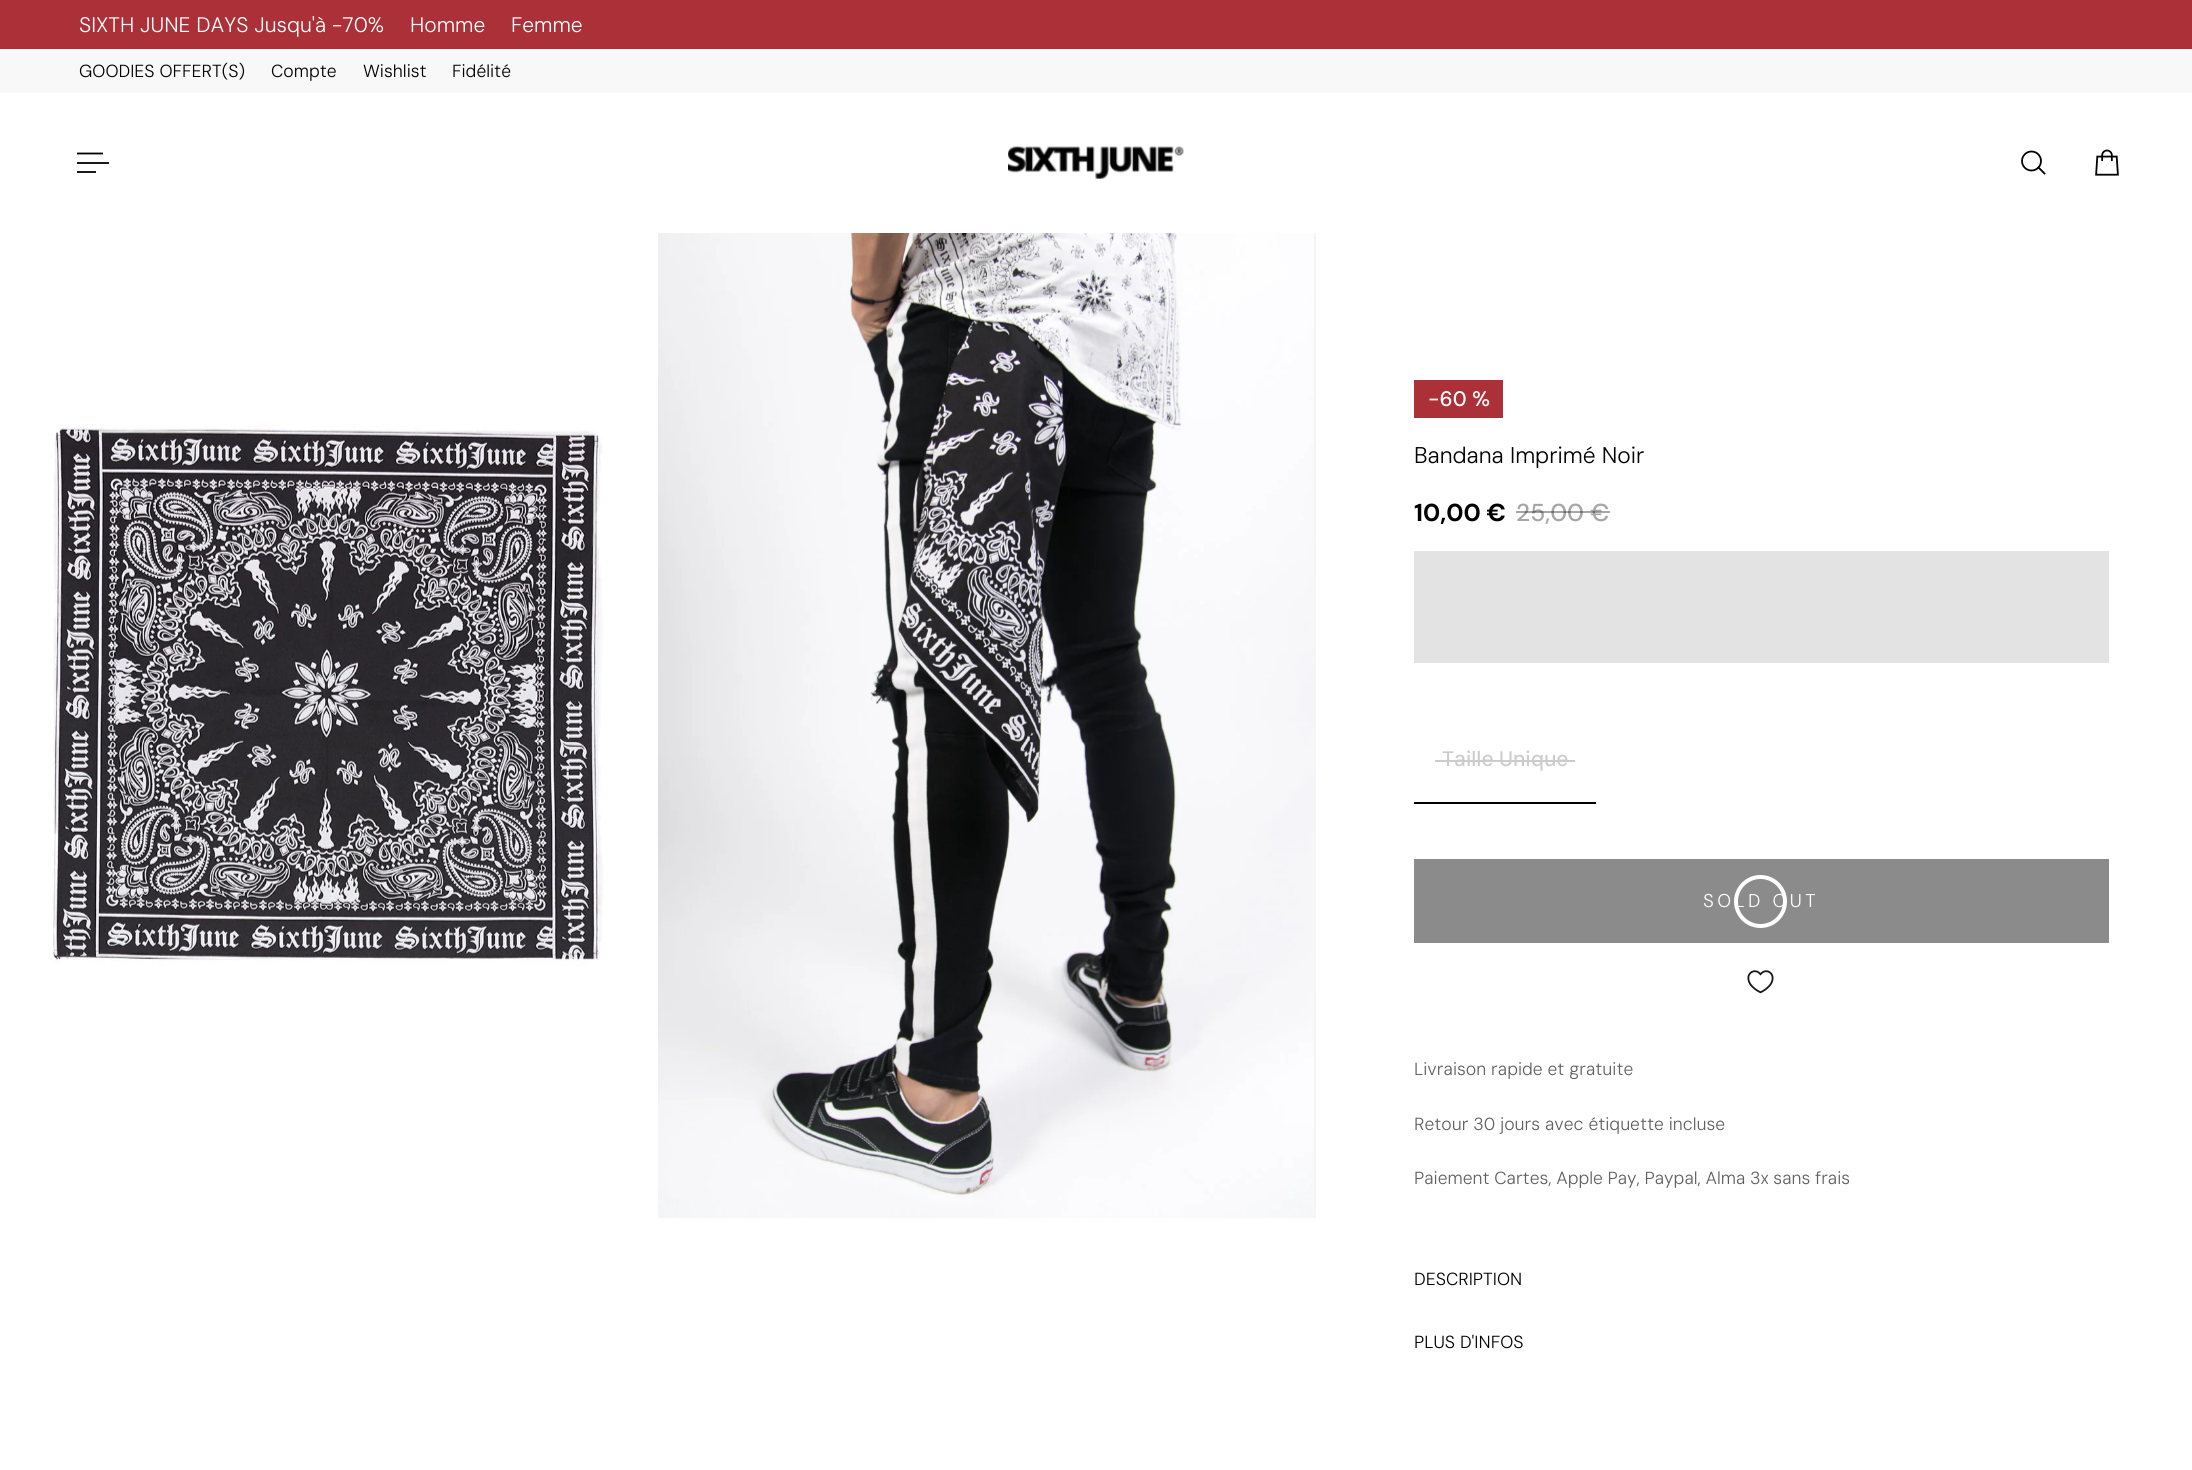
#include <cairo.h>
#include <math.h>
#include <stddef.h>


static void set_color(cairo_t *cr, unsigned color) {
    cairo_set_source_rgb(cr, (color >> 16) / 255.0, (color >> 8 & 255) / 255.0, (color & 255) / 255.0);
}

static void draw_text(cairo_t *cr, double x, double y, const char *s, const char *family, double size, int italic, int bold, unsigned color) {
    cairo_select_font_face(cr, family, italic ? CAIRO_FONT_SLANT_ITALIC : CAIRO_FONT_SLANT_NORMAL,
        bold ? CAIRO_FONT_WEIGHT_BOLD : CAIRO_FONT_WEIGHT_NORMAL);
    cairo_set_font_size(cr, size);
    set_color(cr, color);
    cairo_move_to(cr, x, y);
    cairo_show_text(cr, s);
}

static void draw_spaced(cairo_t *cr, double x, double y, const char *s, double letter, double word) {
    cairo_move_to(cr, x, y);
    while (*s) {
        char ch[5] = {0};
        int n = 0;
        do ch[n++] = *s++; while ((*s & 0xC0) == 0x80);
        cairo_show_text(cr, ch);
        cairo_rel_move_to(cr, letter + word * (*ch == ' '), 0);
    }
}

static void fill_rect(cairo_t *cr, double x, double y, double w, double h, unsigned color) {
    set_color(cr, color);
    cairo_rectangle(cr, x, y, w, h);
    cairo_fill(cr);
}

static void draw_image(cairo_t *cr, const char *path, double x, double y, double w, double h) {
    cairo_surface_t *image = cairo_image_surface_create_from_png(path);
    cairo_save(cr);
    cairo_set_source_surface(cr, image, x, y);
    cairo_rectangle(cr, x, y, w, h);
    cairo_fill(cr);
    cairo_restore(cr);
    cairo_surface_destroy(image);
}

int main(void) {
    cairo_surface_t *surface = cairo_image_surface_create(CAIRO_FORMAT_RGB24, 2192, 1470);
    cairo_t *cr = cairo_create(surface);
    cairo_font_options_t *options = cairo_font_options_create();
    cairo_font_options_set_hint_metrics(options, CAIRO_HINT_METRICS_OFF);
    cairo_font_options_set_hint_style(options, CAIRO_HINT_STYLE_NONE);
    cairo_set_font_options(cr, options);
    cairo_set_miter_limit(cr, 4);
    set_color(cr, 0xFFFFFF);
    cairo_paint(cr);
    fill_rect(cr, 0, 0, 2192, 49, 0xAC3037);
    draw_text(cr, 79, 32, "SIXTH JUNE DAYS Jusqu'à -70%", "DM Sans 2 Light", 21, 0, 0, 0xFFFFFF);
    draw_text(cr, 410, 32, "Homme", "DM Sans 2 Light", 21, 0, 0, 0xFFFFFF);
    draw_text(cr, 511, 32, "Femme", "DM Sans 2 Light", 21, 0, 0, 0xFFFFFF);
    fill_rect(cr, 0, 49, 2192, 44, 0xF8F8F8);
    draw_text(cr, 79, 77, "GOODIES OFFERT(S)", "DM Sans Light", 17.5, 0, 0, 0x000000);
    draw_text(cr, 271, 77, "Compte", "DM Sans Light", 17.5, 0, 0, 0x000000);
    draw_text(cr, 363, 77, "Wishlist", "DM Sans Light", 17.5, 0, 0, 0x000000);
    draw_text(cr, 452, 77, "Fidélité", "DM Sans Light", 17.5, 0, 0, 0x000000);
    cairo_new_path(cr);
    cairo_move_to(cr, 77, 153.5);
    cairo_line_to(cr, 103, 153.5);
    cairo_set_line_width(cr, 1.8);
    cairo_stroke(cr);
    fill_rect(cr, 77, 162, 32, 2, 0x1A1A1A);
    fill_rect(cr, 77, 171, 19, 2, 0x1A1A1A);
    draw_image(cr, "assets/img1.png", 1008, 146, 176, 33);
    cairo_arc(cr, 2031.5, 161, 9.5, 0, 2 * M_PI);
    set_color(cr, 0x000000);
    cairo_stroke(cr);
    cairo_new_path(cr);
    cairo_move_to(cr, 2038.5, 167.5);
    cairo_line_to(cr, 2044.5, 173.5);
    cairo_set_line_cap(cr, CAIRO_LINE_CAP_SQUARE);
    cairo_set_line_join(cr, CAIRO_LINE_JOIN_ROUND);
    cairo_stroke(cr);
    draw_image(cr, "assets/img2.png", 2095, 149, 24, 27);
    draw_image(cr, "assets/img3.png", 0, 233, 656, 985);
    fill_rect(cr, 658, 233, 658, 985, 0xF5F5F5);
    draw_image(cr, "assets/img4.png", 658, 233, 656, 985);
    fill_rect(cr, 1414, 380, 89, 38, 0xAC3037);
    draw_text(cr, 1428, 406, "-60 %", "DM Sans Medium", 21, 0, 0, 0xFFFFFF);
    draw_text(cr, 1414, 463, "Bandana Imprimé Noir", "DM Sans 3 Light", 22.75, 0, 0, 0x000000);
    draw_text(cr, 1414, 521, "10,00 €", "DM Sans", 24.5, 0, 1, 0x000000);
    draw_text(cr, 1516, 521, "25,00 €", "DM Sans 2 Medium", 24.5, 0, 0, 0xA6A6A6);
    cairo_set_source_rgba(cr, 0, 0, 0, 0.35);
    cairo_rectangle(cr, 1516, 511, 94, 2);
    cairo_fill(cr);
    fill_rect(cr, 1414, 551, 695, 112, 0xE3E3E3);
    fill_rect(cr, 1414, 802, 182, 2, 0x000000);
    draw_text(cr, 1442, 766, "Taille Unique", "DM Sans Medium", 21, 0, 0, 0xCCCCCC);
    fill_rect(cr, 1435, 760, 140, 2, 0xCCCCCC);
    fill_rect(cr, 1414, 859, 695, 84, 0x8B8B8B);
    cairo_new_path(cr);
    cairo_arc(cr, 1760.5, 901.5, 24.5, 0, 2 * M_PI);
    set_color(cr, 0xFFFFFF);
    cairo_set_line_width(cr, 4);
    cairo_set_line_cap(cr, CAIRO_LINE_CAP_BUTT);
    cairo_set_line_join(cr, CAIRO_LINE_JOIN_MITER);
    cairo_stroke(cr);
    cairo_select_font_face(cr, "DM Sans Light", CAIRO_FONT_SLANT_NORMAL, CAIRO_FONT_WEIGHT_NORMAL);
    cairo_set_font_size(cr, 18.5);
    draw_spaced(cr, 1703, 907, "SOLD OUT", 3.5, 0);
    draw_image(cr, "assets/img5.png", 1747, 970, 27, 24);
    draw_text(cr, 1414, 1075, "Livraison rapide et gratuite", "DM Sans Light", 17.5, 0, 0, 0x606060);
    draw_text(cr, 1414, 1130, "Retour 30 jours avec étiquette incluse", "DM Sans Light", 17.5, 0, 0, 0x606060);
    draw_spaced(cr, 1414, 1184, "Paiement Cartes, Apple Pay, Paypal, Alma 3x sans frais", 0, -0.25);
    draw_text(cr, 1414, 1285, "DESCRIPTION", "DM Sans Light", 17.5, 0, 0, 0x000000);
    draw_text(cr, 1414, 1348, "PLUS D'INFOS", "DM Sans Light", 17.5, 0, 0, 0x000000);
    cairo_surface_write_to_png(surface, "output.png");
    cairo_font_options_destroy(options);
    cairo_destroy(cr);
    cairo_surface_destroy(surface);
    return 0;
}
